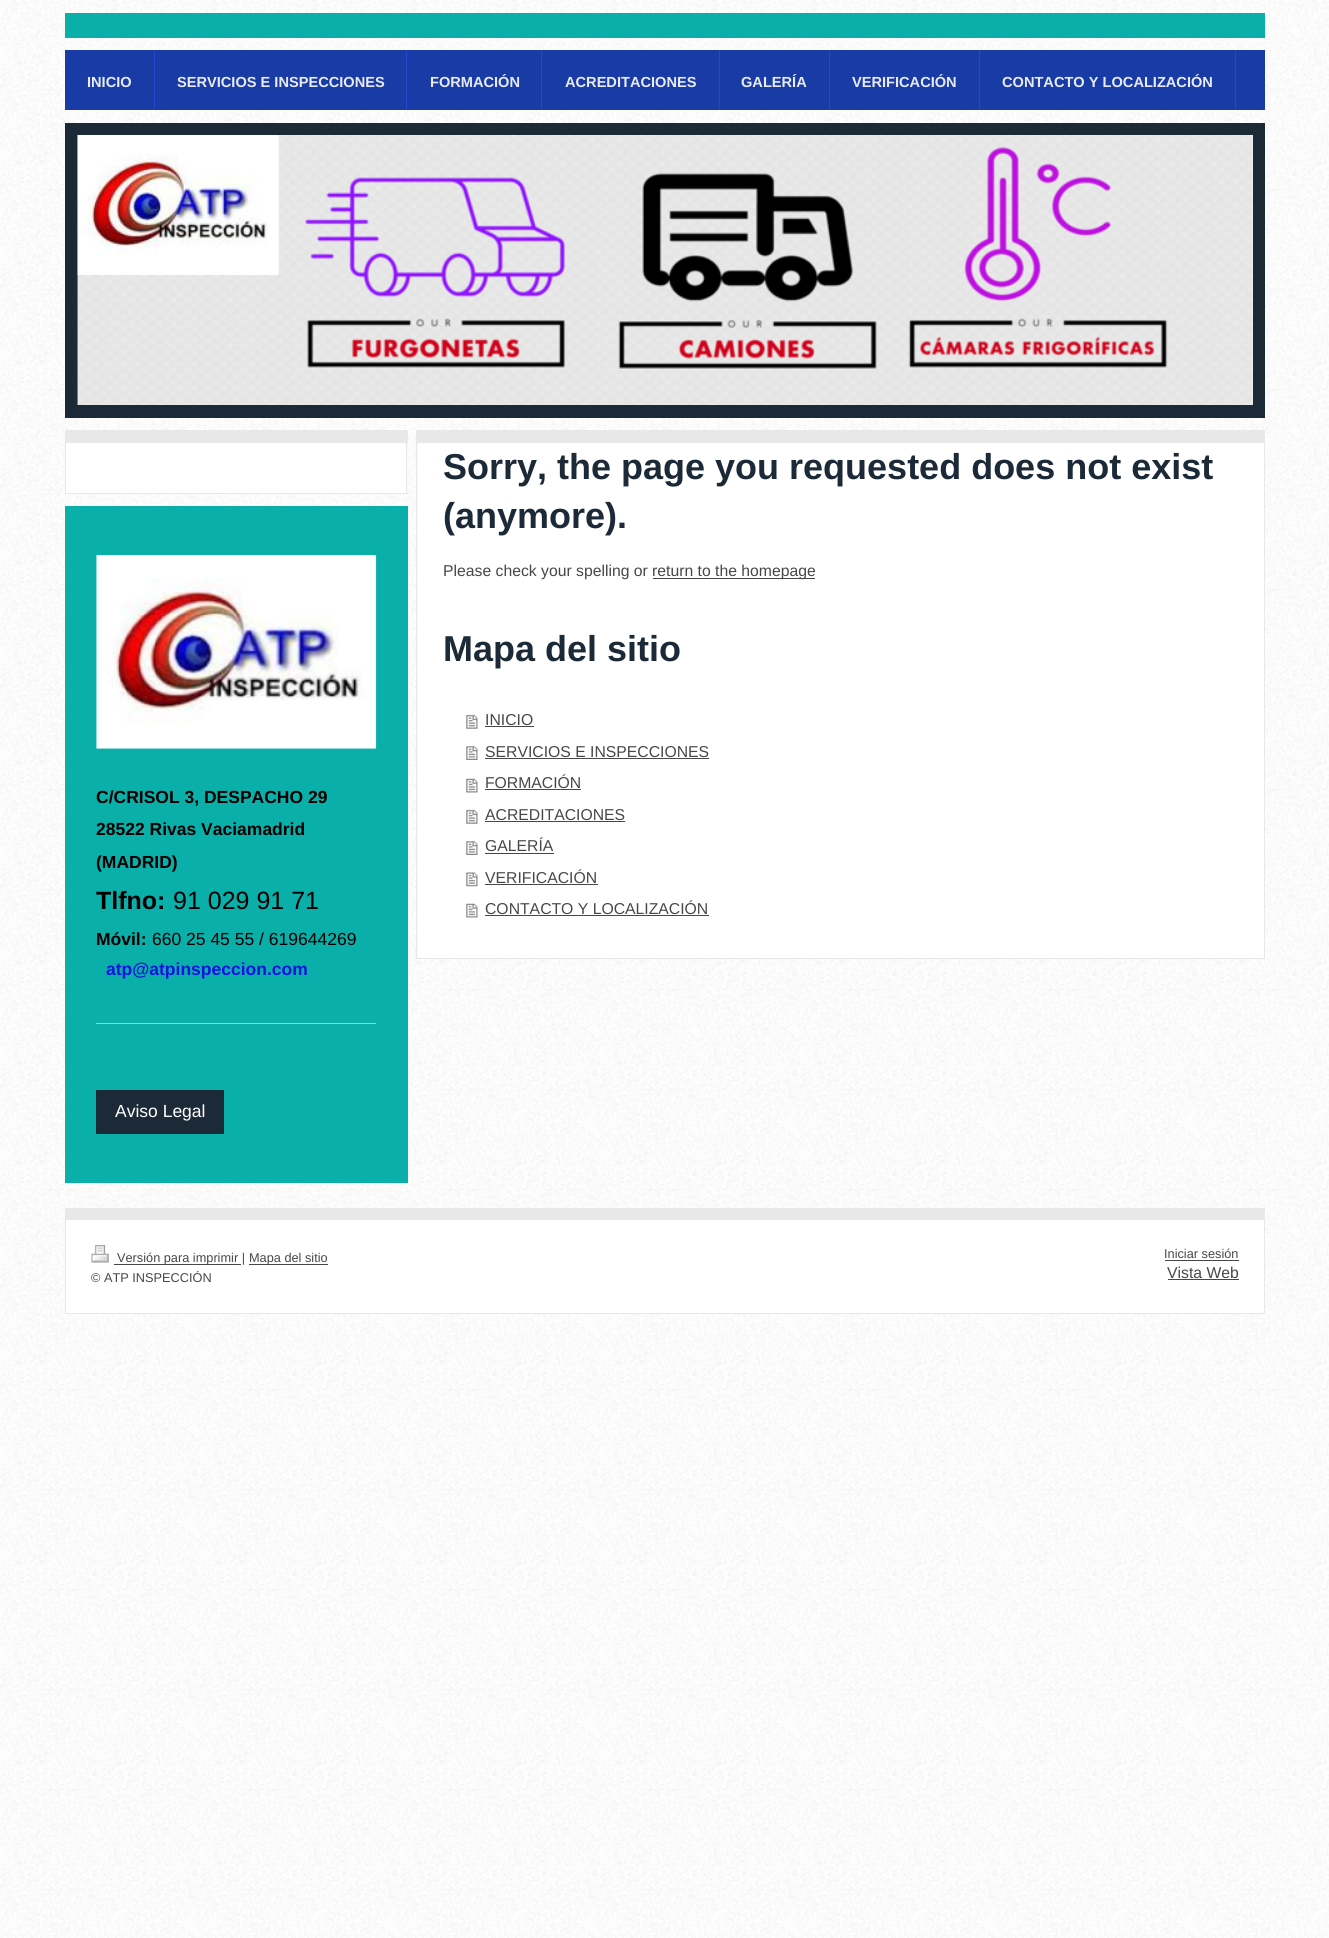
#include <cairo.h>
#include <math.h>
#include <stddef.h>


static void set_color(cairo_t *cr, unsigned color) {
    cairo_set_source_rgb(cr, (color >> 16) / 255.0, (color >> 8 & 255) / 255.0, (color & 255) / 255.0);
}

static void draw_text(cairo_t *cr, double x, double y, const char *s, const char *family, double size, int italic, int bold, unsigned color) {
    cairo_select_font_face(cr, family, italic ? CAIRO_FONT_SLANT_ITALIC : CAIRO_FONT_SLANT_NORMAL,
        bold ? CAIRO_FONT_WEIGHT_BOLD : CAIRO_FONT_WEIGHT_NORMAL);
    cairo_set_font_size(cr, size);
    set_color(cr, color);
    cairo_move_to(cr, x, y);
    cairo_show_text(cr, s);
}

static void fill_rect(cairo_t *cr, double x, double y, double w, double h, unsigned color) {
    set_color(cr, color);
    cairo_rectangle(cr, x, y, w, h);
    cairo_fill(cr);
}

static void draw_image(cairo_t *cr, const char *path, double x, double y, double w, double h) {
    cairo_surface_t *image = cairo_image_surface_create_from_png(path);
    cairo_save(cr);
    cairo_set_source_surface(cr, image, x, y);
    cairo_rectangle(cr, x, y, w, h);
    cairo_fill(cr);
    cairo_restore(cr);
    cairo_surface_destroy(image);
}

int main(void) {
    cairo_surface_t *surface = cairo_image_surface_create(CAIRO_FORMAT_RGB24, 1329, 1938);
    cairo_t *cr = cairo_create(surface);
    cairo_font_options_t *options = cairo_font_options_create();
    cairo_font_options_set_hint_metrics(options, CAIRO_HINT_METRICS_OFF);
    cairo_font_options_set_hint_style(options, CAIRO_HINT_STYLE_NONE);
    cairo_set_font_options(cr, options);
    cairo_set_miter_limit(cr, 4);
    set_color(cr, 0xFFFFFF);
    cairo_paint(cr);
    draw_image(cr, "assets/img1.png", 0, 0, 1329, 1938);
    fill_rect(cr, 65, 50, 1200, 60, 0x193BA6);
    fill_rect(cr, 65, 13, 1200, 25, 0x0BAFA9);
    fill_rect(cr, 154, 50, 1, 60, 0x1F49CE);
    draw_text(cr, 87, 87, "INICIO", "Liberation Sans", 14.6, 0, 1, 0xE8EBF6);
    fill_rect(cr, 406, 50, 1, 60, 0x1F49CE);
    draw_text(cr, 177, 87, "SERVICIOS E INSPECCIONES", "Liberation Sans", 14.6, 0, 1, 0xE8EBF6);
    fill_rect(cr, 541, 50, 1, 60, 0x1F49CE);
    draw_text(cr, 430, 87, "FORMACIÓN", "Liberation Sans", 14.6, 0, 1, 0xE8EBF6);
    fill_rect(cr, 719, 50, 1, 60, 0x1F49CE);
    draw_text(cr, 565, 87, "ACREDITACIONES", "Liberation Sans", 14.6, 0, 1, 0xE8EBF6);
    fill_rect(cr, 829, 50, 1, 60, 0x1F49CE);
    draw_text(cr, 741, 87, "GALERÍA", "Liberation Sans", 14.6, 0, 1, 0xE8EBF6);
    fill_rect(cr, 979, 50, 1, 60, 0x1F49CE);
    draw_text(cr, 852, 87, "VERIFICACIÓN", "Liberation Sans", 14.6, 0, 1, 0xE8EBF6);
    fill_rect(cr, 1235, 50, 1, 60, 0x1F49CE);
    draw_text(cr, 1002, 87, "CONTACTO Y LOCALIZACIÓN", "Liberation Sans", 14.6, 0, 1, 0xE8EBF6);
    fill_rect(cr, 65, 123, 1200, 295, 0x1C2A38);
    draw_image(cr, "assets/img2.png", 77, 135, 1, 270);
    fill_rect(cr, 1252, 135, 1, 270, 0xEEEEEE);
    draw_image(cr, "assets/img3.png", 77, 135, 1175, 270);
    draw_image(cr, "assets/img4.png", 77, 135, 202, 140);
    fill_rect(cr, 418, 443, 846, 515, 0xFFFFFF);
    fill_rect(cr, 417, 430, 847, 13, 0xE8E8E8);
    fill_rect(cr, 1264, 430, 1, 529, 0xE8E8E8);
    fill_rect(cr, 416, 958, 849, 1, 0xE8E8E8);
    fill_rect(cr, 416, 430, 1, 529, 0xE8E8E8);
    draw_text(cr, 443, 479, "Sorry, the page you requested does not exist", "Liberation Sans", 36, 0, 1, 0x1C2A38);
    draw_text(cr, 443, 528, "(anymore).", "Liberation Sans", 36, 0, 1, 0x1C2A38);
    draw_text(cr, 443, 576, "Please check your spelling or", "Liberation Sans", 15.75, 0, 0, 0x474747);
    fill_rect(cr, 653, 578, 162, 1, 0x474747);
    draw_text(cr, 652, 576, "return to the homepage", "Liberation Sans", 15.75, 0, 0, 0x474747);
    draw_text(cr, 443, 661, "Mapa del sitio", "Liberation Sans", 36, 0, 1, 0x1C2A38);
    draw_image(cr, "assets/img5.png", 466, 714, 12, 15);
    draw_text(cr, 485, 725, "INICIO", "Liberation Sans", 15.75, 0, 0, 0x474747);
    fill_rect(cr, 485, 726, 49, 1, 0x474747);
    draw_image(cr, "assets/img6.png", 466, 746, 12, 14);
    draw_text(cr, 485, 757, "SERVICIOS E INSPECCIONES", "Liberation Sans", 15.75, 0, 0, 0x474747);
    fill_rect(cr, 485, 758, 224, 1, 0x474747);
    draw_image(cr, "assets/img7.png", 466, 778, 12, 15);
    draw_text(cr, 485, 788, "FORMACIÓN", "Liberation Sans", 15.75, 0, 0, 0x474747);
    fill_rect(cr, 485, 789, 96, 1, 0x474747);
    draw_image(cr, "assets/img5.png", 466, 809, 12, 15);
    draw_text(cr, 485, 820, "ACREDITACIONES", "Liberation Sans", 15.75, 0, 0, 0x474747);
    fill_rect(cr, 485, 821, 140, 1, 0x474747);
    draw_image(cr, "assets/img6.png", 466, 841, 12, 14);
    draw_text(cr, 485, 851, "GALERÍA", "Liberation Sans", 15.75, 0, 0, 0x474747);
    fill_rect(cr, 485, 853, 69, 1, 0x474747);
    draw_image(cr, "assets/img8.png", 466, 872, 12, 15);
    draw_text(cr, 485, 883, "VERIFICACIÓN", "Liberation Sans", 15.75, 0, 0, 0x474747);
    fill_rect(cr, 485, 884, 113, 1, 0x474747);
    draw_image(cr, "assets/img9.png", 466, 903, 12, 15);
    draw_text(cr, 485, 914, "CONTACTO Y LOCALIZACIÓN", "Liberation Sans", 15.75, 0, 0, 0x474747);
    fill_rect(cr, 485, 915, 224, 1, 0x474747);
    fill_rect(cr, 66, 443, 340, 50, 0xFFFFFF);
    fill_rect(cr, 66, 430, 342, 13, 0xE8E8E8);
    fill_rect(cr, 406, 443, 1, 51, 0xE8E8E8);
    fill_rect(cr, 65, 493, 343, 1, 0xE8E8E8);
    fill_rect(cr, 65, 430, 1, 64, 0xE8E8E8);
    fill_rect(cr, 65, 506, 343, 677, 0x0BAFA9);
    draw_image(cr, "assets/img10.png", 96, 555, 281, 194);
    draw_text(cr, 96, 803, "C/CRISOL 3, DESPACHO 29", "Liberation Sans", 17.5, 0, 1, 0x000000);
    draw_text(cr, 96, 835, "28522 Rivas Vaciamadrid", "Liberation Sans", 17.5, 0, 1, 0x000000);
    draw_text(cr, 96, 868, "(MADRID)", "Liberation Sans", 17.5, 0, 1, 0x000000);
    draw_text(cr, 96, 909, "Tlfno:", "Liberation Sans", 25, 0, 1, 0x000000);
    draw_text(cr, 173, 909, "91 029 91 71", "Liberation Sans", 25, 0, 0, 0x000000);
    draw_text(cr, 96, 945, "Móvil:", "Liberation Sans", 17.5, 0, 1, 0x000000);
    draw_text(cr, 152, 945, "660 25 45 55 / 619644269", "Liberation Sans", 17.5, 0, 0, 0x000000);
    draw_text(cr, 106, 975, "atp@atpinspeccion.com", "Liberation Sans", 17.5, 0, 1, 0x1313DF);
    fill_rect(cr, 96, 1023, 280, 1, 0x56EEE8);
    fill_rect(cr, 96, 1090, 128, 44, 0x1C2A38);
    draw_text(cr, 115, 1117, "Aviso Legal", "Liberation Sans", 17.5, 0, 0, 0xFFFFFF);
    fill_rect(cr, 66, 1220, 1198, 93, 0xFFFFFF);
    fill_rect(cr, 66, 1208, 1198, 12, 0xE8E8E8);
    fill_rect(cr, 1264, 1208, 1, 106, 0xE8E8E8);
    fill_rect(cr, 65, 1313, 1200, 1, 0xE8E8E8);
    fill_rect(cr, 65, 1208, 1, 106, 0xE8E8E8);
    draw_image(cr, "assets/img11.png", 91, 1245, 18, 18);
    fill_rect(cr, 114, 1264, 127, 1, 0x474747);
    draw_text(cr, 117, 1262, "Versión para imprimir |", "Liberation Sans", 12.75, 0, 0, 0x474747);
    fill_rect(cr, 249, 1264, 79, 1, 0x474747);
    draw_text(cr, 249, 1262, "Mapa del sitio", "Liberation Sans", 12.75, 0, 0, 0x474747);
    draw_text(cr, 91, 1282, "© ATP INSPECCIÓN", "Liberation Sans", 12.75, 0, 0, 0x474747);
    draw_text(cr, 1164, 1258, "Iniciar sesión", "Liberation Sans", 12.75, 0, 0, 0x474747);
    fill_rect(cr, 1165, 1260, 74, 1, 0x474747);
    draw_text(cr, 1167, 1278, "Vista Web", "Liberation Sans", 15.75, 0, 0, 0x474747);
    fill_rect(cr, 1168, 1279, 71, 1, 0x474747);
    cairo_surface_write_to_png(surface, "output.png");
    cairo_font_options_destroy(options);
    cairo_destroy(cr);
    cairo_surface_destroy(surface);
    return 0;
}
